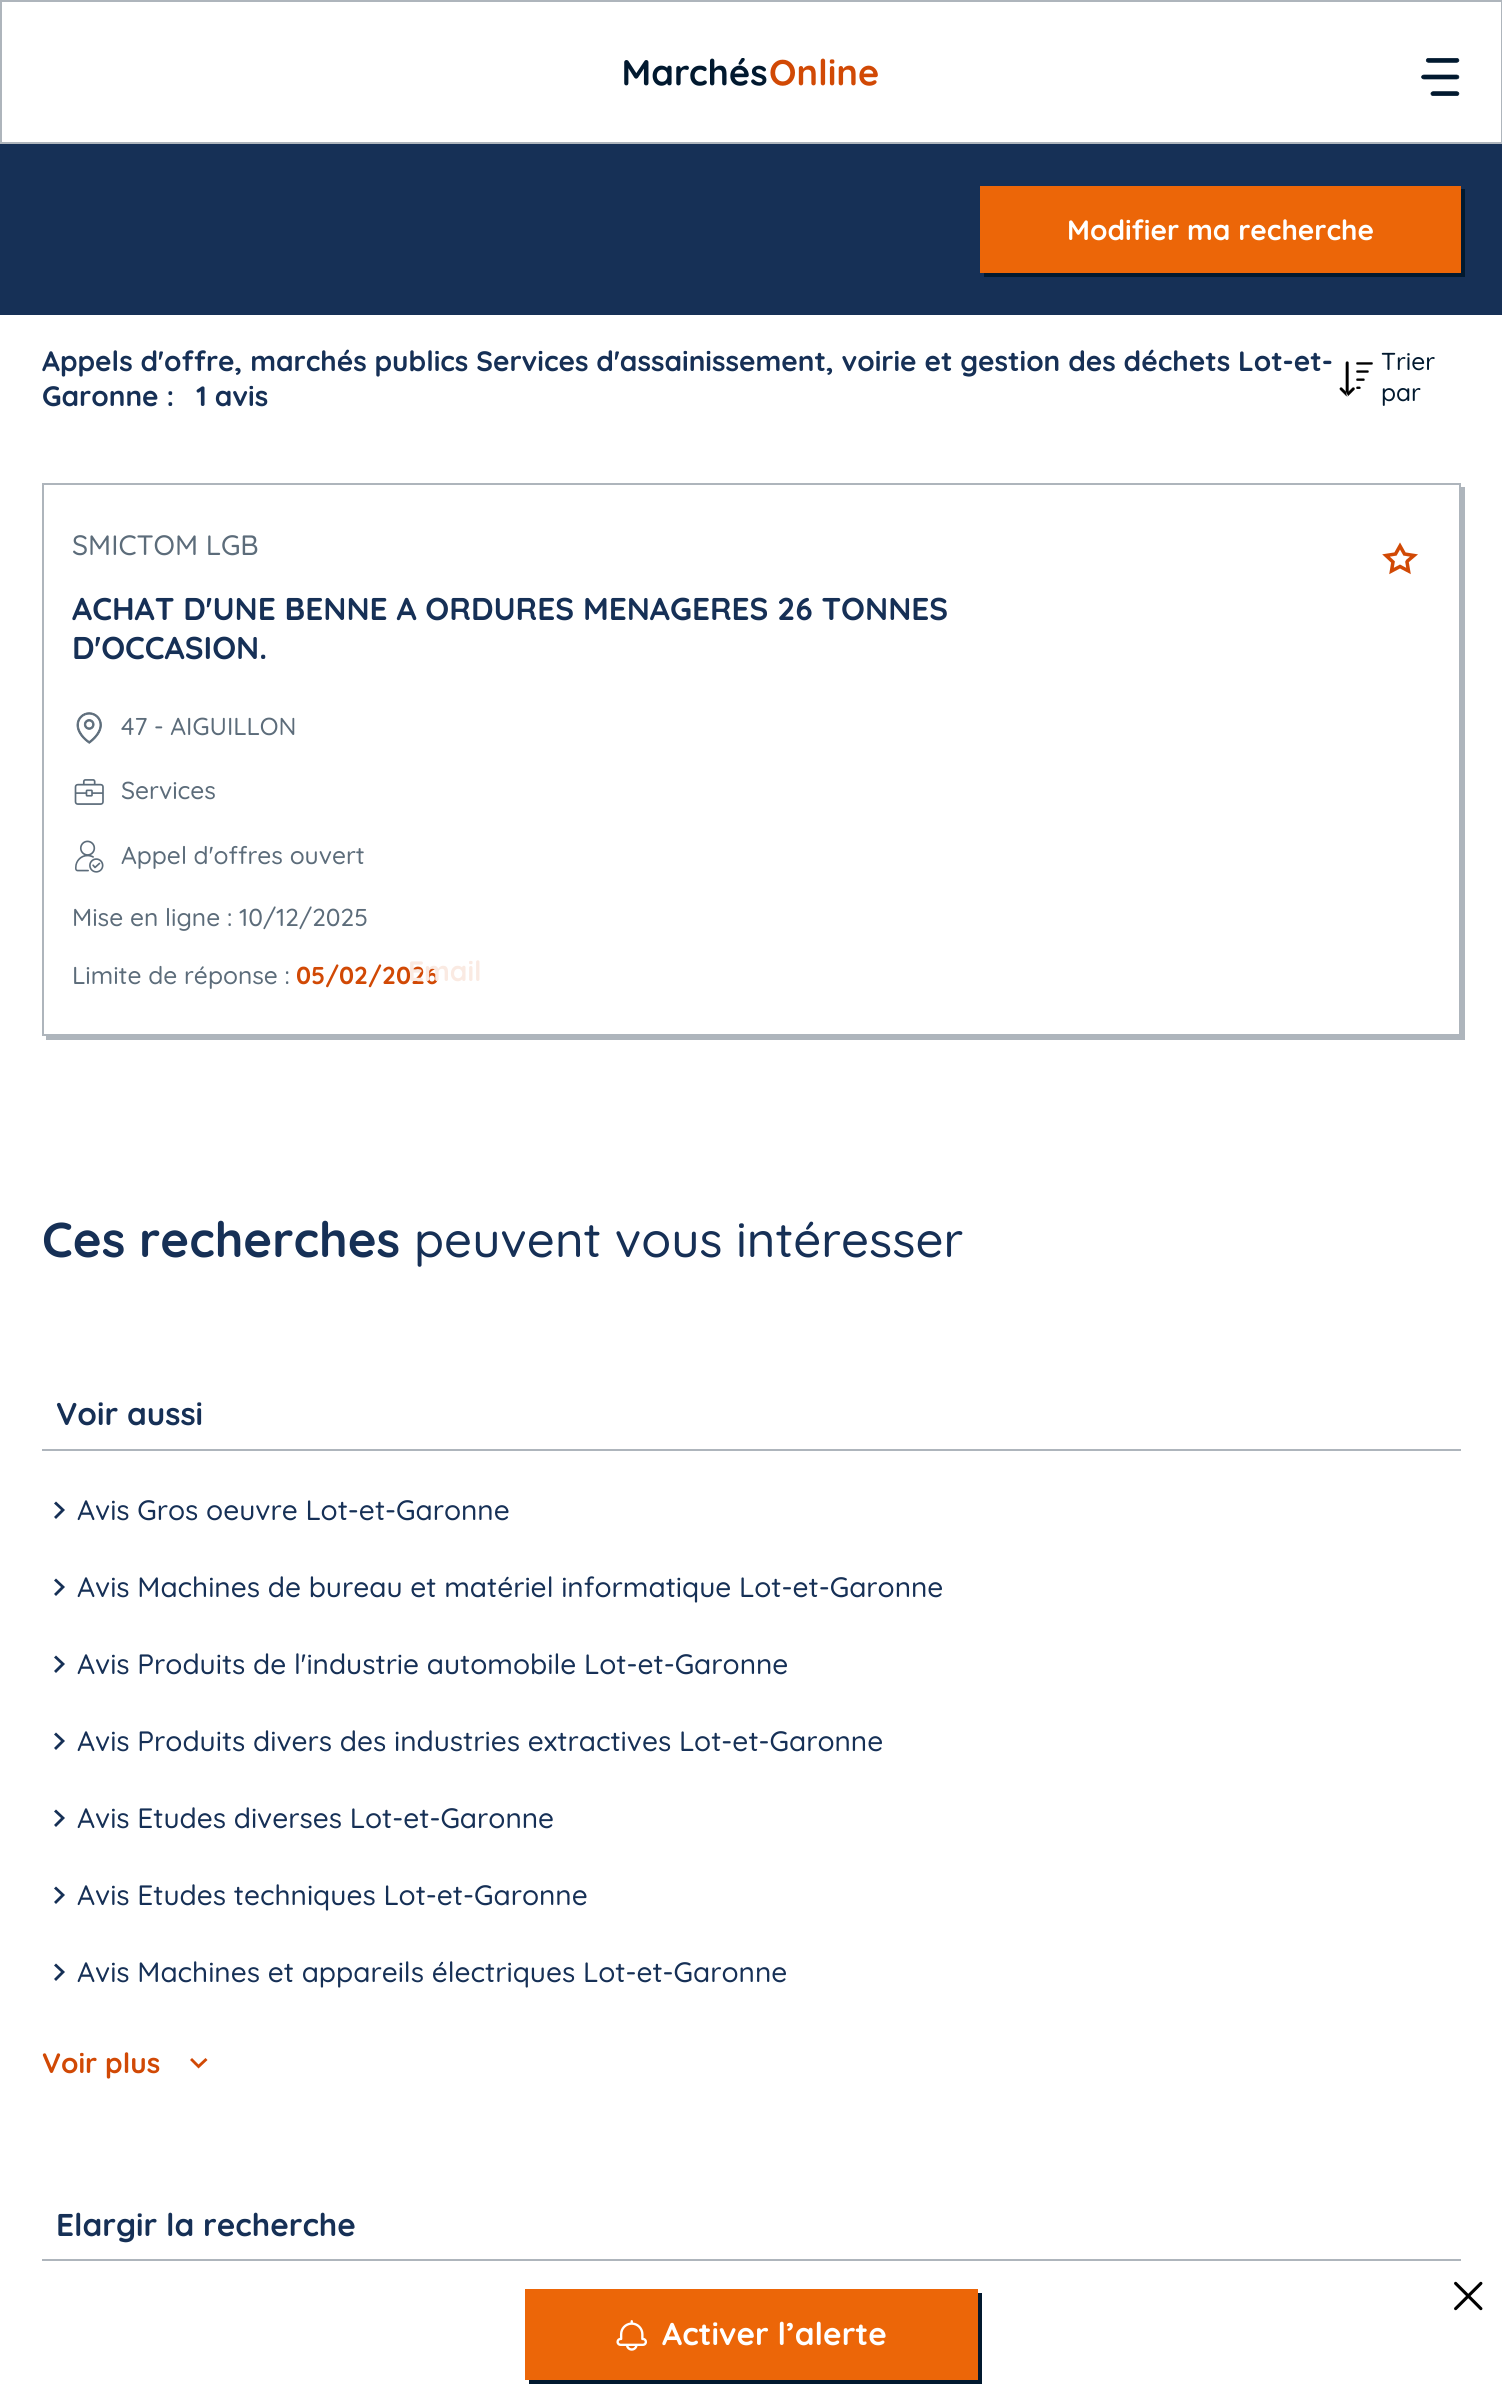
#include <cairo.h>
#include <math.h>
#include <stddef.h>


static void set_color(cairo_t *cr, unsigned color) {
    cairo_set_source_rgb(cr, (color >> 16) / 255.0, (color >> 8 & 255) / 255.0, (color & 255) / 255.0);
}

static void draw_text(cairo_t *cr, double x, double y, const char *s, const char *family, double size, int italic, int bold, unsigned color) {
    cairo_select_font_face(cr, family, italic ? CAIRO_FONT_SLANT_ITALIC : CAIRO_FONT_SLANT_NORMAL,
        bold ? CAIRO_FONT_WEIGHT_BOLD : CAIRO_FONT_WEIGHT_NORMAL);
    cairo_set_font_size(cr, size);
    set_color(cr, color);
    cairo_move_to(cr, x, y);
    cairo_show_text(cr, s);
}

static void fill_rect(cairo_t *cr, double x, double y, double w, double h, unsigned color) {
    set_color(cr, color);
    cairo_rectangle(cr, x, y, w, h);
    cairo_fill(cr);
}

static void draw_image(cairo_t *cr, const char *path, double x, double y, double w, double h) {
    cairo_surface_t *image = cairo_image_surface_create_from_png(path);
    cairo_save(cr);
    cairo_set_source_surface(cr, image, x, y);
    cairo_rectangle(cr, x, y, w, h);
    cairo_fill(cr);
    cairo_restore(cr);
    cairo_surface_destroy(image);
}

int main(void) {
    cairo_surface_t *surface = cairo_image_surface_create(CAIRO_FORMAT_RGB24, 1502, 2408);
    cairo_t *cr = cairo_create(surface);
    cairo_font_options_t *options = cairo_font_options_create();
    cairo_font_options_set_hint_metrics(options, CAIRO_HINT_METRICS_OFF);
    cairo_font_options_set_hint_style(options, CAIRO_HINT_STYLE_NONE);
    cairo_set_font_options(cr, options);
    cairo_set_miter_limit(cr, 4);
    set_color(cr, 0xFFFFFF);
    cairo_paint(cr);
    fill_rect(cr, 0, 144, 1502, 171, 0x163056);
    set_color(cr, 0x01192F);
    cairo_new_path(cr);
    cairo_move_to(cr, 984, 273);
    cairo_line_to(cr, 984, 277);
    cairo_line_to(cr, 1465, 277);
    cairo_line_to(cr, 1465, 189);
    cairo_line_to(cr, 1461, 189);
    cairo_line_to(cr, 1461, 273);
    cairo_close_path(cr);
    cairo_fill(cr);
    fill_rect(cr, 980, 186, 481, 87, 0xEC6608);
    draw_text(cr, 1067, 240, "Modifier ma recherche", "Quicksand", 28, 0, 1, 0xFFFFFF);
    draw_image(cr, "assets/img1.png", 1454, 2281, 29, 30);
    set_color(cr, 0x01192F);
    cairo_new_path(cr);
    cairo_move_to(cr, 529, 2380);
    cairo_line_to(cr, 529, 2384);
    cairo_line_to(cr, 982, 2384);
    cairo_line_to(cr, 982, 2293);
    cairo_line_to(cr, 978, 2293);
    cairo_line_to(cr, 978, 2380);
    cairo_close_path(cr);
    cairo_fill(cr);
    fill_rect(cr, 525, 2289, 453, 91, 0xEC6608);
    draw_image(cr, "assets/img2.png", 616, 2320, 31, 31);
    draw_text(cr, 662, 2345, "Activer l’alerte", "Quicksand", 31.5, 0, 1, 0xFFFFFF);
    draw_text(cr, 42, 371, "Appels d'offre, marchés publics Services d'assainissement, voirie et gestion des déchets Lot-et-", "Quicksand", 28, 0, 1, 0x163056);
    draw_text(cr, 42, 406, "Garonne :", "Quicksand", 28, 0, 1, 0x163056);
    draw_text(cr, 196, 406, "1 avis", "Quicksand", 28, 0, 1, 0x163056);
    draw_image(cr, "assets/img3.png", 1339, 361, 34, 36);
    draw_text(cr, 1381, 370, "Trier", "Quicksand Medium", 24.5, 0, 0, 0x01192F);
    draw_text(cr, 1381, 401, "par", "Quicksand Medium", 24.5, 0, 0, 0x01192F);
    set_color(cr, 0xAEB5BC);
    cairo_new_path(cr);
    cairo_move_to(cr, 46, 1036);
    cairo_line_to(cr, 46, 1040);
    cairo_line_to(cr, 1465, 1040);
    cairo_line_to(cr, 1465, 487);
    cairo_line_to(cr, 1461, 487);
    cairo_line_to(cr, 1461, 1036);
    cairo_close_path(cr);
    cairo_fill(cr);
    cairo_rectangle(cr, 43, 484, 1417, 551);
    cairo_stroke(cr);
    draw_text(cr, 72, 555, "SMICTOM LGB", "Quicksand Medium", 28, 0, 0, 0x5C6C7A);
    draw_text(cr, 72, 620, "ACHAT D'UNE BENNE A ORDURES MENAGERES 26 TONNES", "Quicksand", 31.5, 0, 1, 0x163056);
    draw_text(cr, 72, 659, "D'OCCASION.", "Quicksand", 31.5, 0, 1, 0x163056);
    draw_image(cr, "assets/img4.png", 76, 712, 26, 32);
    draw_text(cr, 121, 735, "47 - AIGUILLON", "Quicksand Medium", 24.5, 0, 0, 0x5C6C7A);
    draw_image(cr, "assets/img5.png", 74, 779, 30, 26);
    draw_text(cr, 121, 799, "Services", "Quicksand Medium", 24.5, 0, 0, 0x5C6C7A);
    draw_image(cr, "assets/img6.png", 75, 840, 29, 33);
    draw_text(cr, 121, 864, "Appel d'offres ouvert", "Quicksand Medium", 24.5, 0, 0, 0x5C6C7A);
    draw_text(cr, 72, 926, "Mise en ligne : 10/12/2025", "Quicksand Medium", 24.5, 0, 0, 0x5C6C7A);
    draw_text(cr, 72, 984, "Limite de réponse :", "Quicksand Medium", 24.5, 0, 0, 0x5C6C7A);
    draw_text(cr, 296, 984, "05/02/2026", "Quicksand", 24.5, 0, 1, 0xD14905);
    cairo_new_path(cr);
    cairo_move_to(cr, 1407.5, 561);
    cairo_line_to(cr, 1407, 562);
    cairo_line_to(cr, 1408.5, 571);
    cairo_line_to(cr, 1400, 566.5);
    cairo_line_to(cr, 1391.5, 571);
    cairo_line_to(cr, 1393, 562);
    cairo_line_to(cr, 1386, 555.5);
    cairo_line_to(cr, 1395.5, 554);
    cairo_line_to(cr, 1400, 546);
    cairo_line_to(cr, 1404.5, 554);
    cairo_line_to(cr, 1414, 555.5);
    cairo_close_path(cr);
    cairo_set_line_width(cr, 3.5);
    cairo_stroke(cr);
    draw_text(cr, 42, 1257, "Ces recherches", "Quicksand", 49, 0, 1, 0x163056);
    draw_text(cr, 414, 1257, "peuvent vous intéresser", "Quicksand Medium", 49, 0, 0, 0x163056);
    fill_rect(cr, 42, 1449, 1419, 2, 0xAEB5BC);
    draw_text(cr, 56, 1425, "Voir aussi", "Quicksand", 31.5, 0, 1, 0x163056);
    cairo_new_path(cr);
    cairo_move_to(cr, 56, 1501.5);
    cairo_line_to(cr, 54, 1503.5);
    cairo_line_to(cr, 61, 1510);
    cairo_line_to(cr, 54, 1517);
    cairo_line_to(cr, 56, 1519);
    cairo_line_to(cr, 65, 1510);
    cairo_close_path(cr);
    cairo_fill(cr);
    draw_text(cr, 77, 1520, "Avis Gros oeuvre Lot-et-Garonne", "Quicksand Medium", 28, 0, 0, 0x163056);
    cairo_new_path(cr);
    cairo_move_to(cr, 56, 1578.5);
    cairo_line_to(cr, 54, 1580.5);
    cairo_line_to(cr, 61, 1587);
    cairo_line_to(cr, 54, 1594);
    cairo_line_to(cr, 56, 1596);
    cairo_line_to(cr, 65, 1587);
    cairo_close_path(cr);
    cairo_fill(cr);
    draw_text(cr, 77, 1597, "Avis Machines de bureau et matériel informatique Lot-et-Garonne", "Quicksand Medium", 28, 0, 0, 0x163056);
    cairo_new_path(cr);
    cairo_move_to(cr, 56, 1655.5);
    cairo_line_to(cr, 54, 1657.5);
    cairo_line_to(cr, 61, 1664);
    cairo_line_to(cr, 54, 1671);
    cairo_line_to(cr, 56, 1673);
    cairo_line_to(cr, 65, 1664);
    cairo_close_path(cr);
    cairo_fill(cr);
    draw_text(cr, 77, 1674, "Avis Produits de l'industrie automobile Lot-et-Garonne", "Quicksand Medium", 28, 0, 0, 0x163056);
    cairo_new_path(cr);
    cairo_move_to(cr, 56, 1732.5);
    cairo_line_to(cr, 54, 1734.5);
    cairo_line_to(cr, 61, 1741);
    cairo_line_to(cr, 54, 1748);
    cairo_line_to(cr, 56, 1750);
    cairo_line_to(cr, 65, 1741);
    cairo_close_path(cr);
    cairo_fill(cr);
    draw_text(cr, 77, 1751, "Avis Produits divers des industries extractives Lot-et-Garonne", "Quicksand Medium", 28, 0, 0, 0x163056);
    cairo_new_path(cr);
    cairo_move_to(cr, 56, 1809.5);
    cairo_line_to(cr, 54, 1811.5);
    cairo_line_to(cr, 61, 1818);
    cairo_line_to(cr, 54, 1825);
    cairo_line_to(cr, 56, 1827);
    cairo_line_to(cr, 65, 1818);
    cairo_close_path(cr);
    cairo_fill(cr);
    draw_text(cr, 77, 1828, "Avis Etudes diverses Lot-et-Garonne", "Quicksand Medium", 28, 0, 0, 0x163056);
    cairo_new_path(cr);
    cairo_move_to(cr, 56, 1886.5);
    cairo_line_to(cr, 54, 1888.5);
    cairo_line_to(cr, 61, 1895);
    cairo_line_to(cr, 54, 1902);
    cairo_line_to(cr, 56, 1904);
    cairo_line_to(cr, 65, 1895);
    cairo_close_path(cr);
    cairo_fill(cr);
    draw_text(cr, 77, 1905, "Avis Etudes techniques Lot-et-Garonne", "Quicksand Medium", 28, 0, 0, 0x163056);
    cairo_new_path(cr);
    cairo_move_to(cr, 56, 1963.5);
    cairo_line_to(cr, 54, 1965.5);
    cairo_line_to(cr, 61, 1972);
    cairo_line_to(cr, 54, 1979);
    cairo_line_to(cr, 56, 1981);
    cairo_line_to(cr, 65, 1972);
    cairo_close_path(cr);
    cairo_fill(cr);
    draw_text(cr, 77, 1982, "Avis Machines et appareils électriques Lot-et-Garonne", "Quicksand Medium", 28, 0, 0, 0x163056);
    draw_text(cr, 42, 2073, "Voir plus", "Quicksand", 28, 0, 1, 0xD14905);
    cairo_new_path(cr);
    cairo_move_to(cr, 205.5, 2058);
    cairo_line_to(cr, 198.5, 2064.5);
    cairo_line_to(cr, 192, 2058);
    cairo_line_to(cr, 190, 2060);
    cairo_line_to(cr, 198.5, 2068.5);
    cairo_line_to(cr, 207.5, 2060);
    cairo_close_path(cr);
    cairo_fill(cr);
    fill_rect(cr, 42, 2259, 1419, 2, 0xAEB5BC);
    draw_text(cr, 56, 2236, "Elargir la recherche", "Quicksand", 31.5, 0, 1, 0x163056);
    cairo_rectangle(cr, 1, 1, 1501, 142);
    set_color(cr, 0xAEB5BC);
    cairo_set_line_width(cr, 2);
    cairo_stroke(cr);
    draw_image(cr, "assets/img7.png", 624, 58, 254, 28);
    draw_image(cr, "assets/img8.png", 1421, 58, 39, 38);
    draw_text(cr, 408, 981, "Email", "Quicksand", 28, 0, 1, 0xFAEAE2);
    cairo_surface_write_to_png(surface, "output.png");
    cairo_font_options_destroy(options);
    cairo_destroy(cr);
    cairo_surface_destroy(surface);
    return 0;
}
